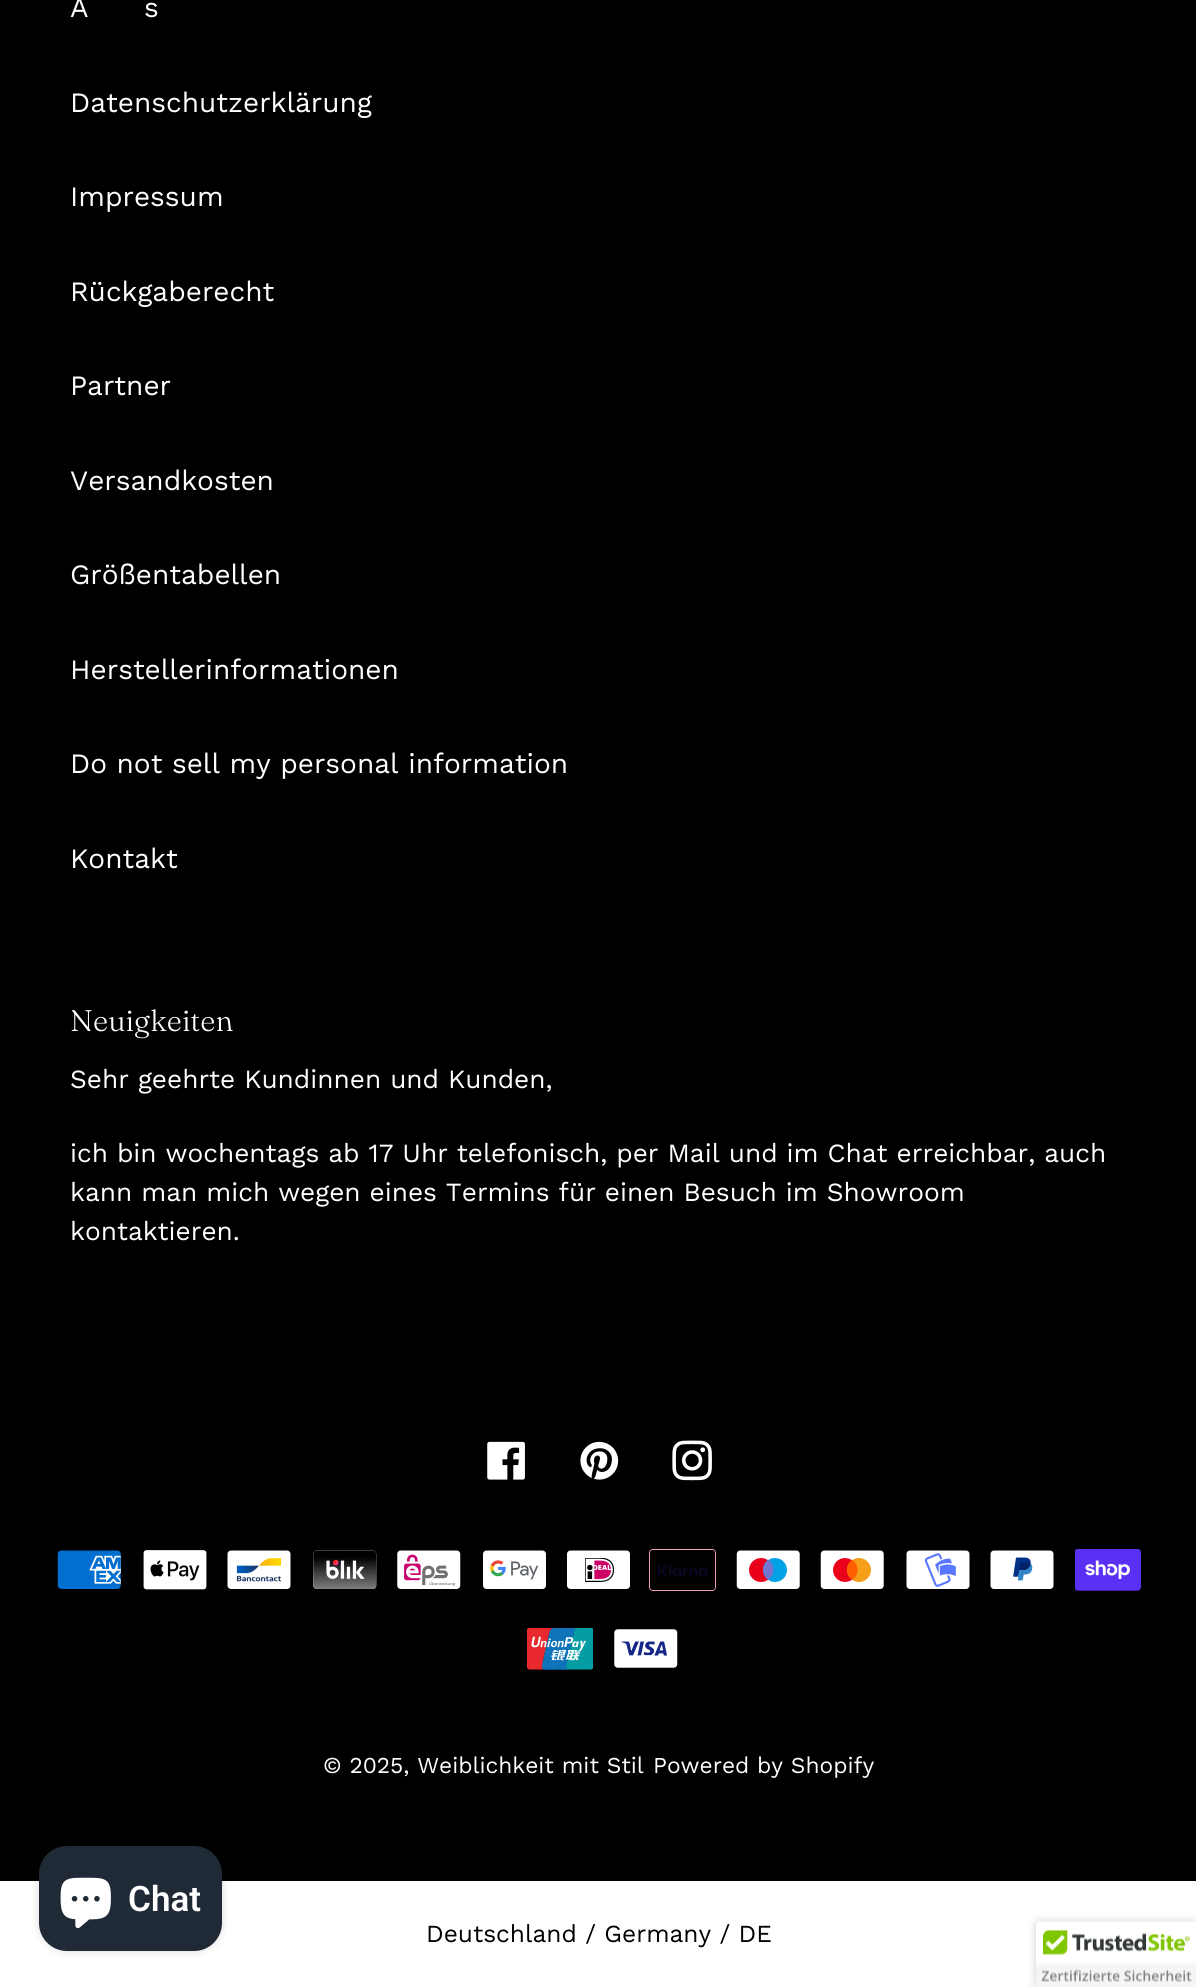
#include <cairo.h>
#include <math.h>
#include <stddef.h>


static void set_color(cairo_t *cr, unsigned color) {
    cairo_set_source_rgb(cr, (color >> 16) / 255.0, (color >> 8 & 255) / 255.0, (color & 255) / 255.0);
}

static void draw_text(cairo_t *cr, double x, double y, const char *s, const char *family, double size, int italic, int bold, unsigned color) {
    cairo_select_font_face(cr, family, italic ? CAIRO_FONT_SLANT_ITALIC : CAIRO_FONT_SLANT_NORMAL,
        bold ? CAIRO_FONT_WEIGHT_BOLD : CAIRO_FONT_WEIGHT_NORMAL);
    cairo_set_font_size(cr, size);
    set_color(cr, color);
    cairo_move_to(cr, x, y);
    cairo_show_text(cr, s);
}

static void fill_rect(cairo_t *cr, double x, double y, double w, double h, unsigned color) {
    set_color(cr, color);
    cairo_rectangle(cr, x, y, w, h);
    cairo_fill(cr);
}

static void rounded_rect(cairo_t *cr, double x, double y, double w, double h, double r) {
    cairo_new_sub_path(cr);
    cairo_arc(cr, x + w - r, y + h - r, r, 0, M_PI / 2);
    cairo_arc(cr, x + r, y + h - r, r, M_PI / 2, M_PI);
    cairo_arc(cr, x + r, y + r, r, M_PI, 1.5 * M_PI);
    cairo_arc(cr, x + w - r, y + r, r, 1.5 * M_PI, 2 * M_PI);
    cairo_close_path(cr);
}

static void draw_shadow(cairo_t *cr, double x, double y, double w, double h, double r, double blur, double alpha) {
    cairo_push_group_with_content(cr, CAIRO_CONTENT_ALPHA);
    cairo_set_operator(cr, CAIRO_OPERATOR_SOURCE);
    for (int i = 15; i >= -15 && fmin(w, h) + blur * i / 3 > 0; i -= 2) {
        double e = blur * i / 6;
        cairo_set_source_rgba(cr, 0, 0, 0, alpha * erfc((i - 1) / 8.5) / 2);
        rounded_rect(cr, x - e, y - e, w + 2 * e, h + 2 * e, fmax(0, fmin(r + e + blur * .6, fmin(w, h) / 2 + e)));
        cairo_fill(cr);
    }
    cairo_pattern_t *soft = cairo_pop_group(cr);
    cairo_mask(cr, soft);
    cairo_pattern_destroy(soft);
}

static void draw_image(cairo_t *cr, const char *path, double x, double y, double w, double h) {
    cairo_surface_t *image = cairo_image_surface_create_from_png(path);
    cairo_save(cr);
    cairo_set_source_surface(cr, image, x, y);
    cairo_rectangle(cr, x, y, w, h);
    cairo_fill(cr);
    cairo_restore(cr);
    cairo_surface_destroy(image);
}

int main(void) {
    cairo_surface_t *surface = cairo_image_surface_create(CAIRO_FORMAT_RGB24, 1196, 1987);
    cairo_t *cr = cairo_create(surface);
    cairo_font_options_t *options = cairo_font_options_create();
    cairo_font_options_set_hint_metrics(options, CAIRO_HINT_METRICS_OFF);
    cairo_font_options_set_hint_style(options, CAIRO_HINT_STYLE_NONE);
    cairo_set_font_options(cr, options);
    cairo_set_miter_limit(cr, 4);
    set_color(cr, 0x000000);
    cairo_paint(cr);
    draw_text(cr, 70, 17, "A", "Work Sans", 28, 0, 0, 0xFFFFFF);
    draw_text(cr, 144, 17, "s", "Work Sans", 28, 0, 0, 0xFFFFFF);
    draw_text(cr, 70, 112, "Datenschutzerklärung", "Work Sans", 28, 0, 0, 0xFFFFFF);
    draw_text(cr, 70, 206, "Impressum", "Work Sans", 28, 0, 0, 0xFFFFFF);
    draw_text(cr, 70, 301, "Rückgaberecht", "Work Sans", 28, 0, 0, 0xFFFFFF);
    draw_text(cr, 70, 395, "Partner", "Work Sans", 28, 0, 0, 0xFFFFFF);
    draw_text(cr, 70, 490, "Versandkosten", "Work Sans", 28, 0, 0, 0xFFFFFF);
    draw_text(cr, 70, 584, "Größentabellen", "Work Sans", 28, 0, 0, 0xFFFFFF);
    draw_text(cr, 70, 679, "Herstellerinformationen", "Work Sans", 28, 0, 0, 0xFFFFFF);
    draw_text(cr, 70, 773, "Do not sell my personal information", "Work Sans", 28, 0, 0, 0xFFFFFF);
    draw_text(cr, 70, 868, "Kontakt", "Work Sans", 28, 0, 0, 0xFFFFFF);
    draw_text(cr, 70, 1031, "Neuigkeiten", "Fraunces Light", 29.75, 0, 0, 0xFFFFFF);
    draw_text(cr, 70, 1088, "Sehr geehrte Kundinnen und Kunden,", "Work Sans", 26.25, 0, 0, 0xFFFFFF);
    draw_text(cr, 70, 1162, "ich bin wochentags ab 17 Uhr telefonisch, per Mail und im Chat erreichbar, auch", "Work Sans", 26.25, 0, 0, 0xFFFFFF);
    draw_text(cr, 70, 1201, "kann man mich wegen eines Termins für einen Besuch im Showroom", "Work Sans", 26.25, 0, 0, 0xFFFFFF);
    draw_text(cr, 70, 1240, "kontaktieren.", "Work Sans", 26.25, 0, 0, 0xFFFFFF);
    draw_image(cr, "assets/img1.png", 487, 1441, 38, 39);
    draw_image(cr, "assets/img2.png", 580, 1441, 39, 39);
    draw_image(cr, "assets/img3.png", 672, 1440, 40, 41);
    draw_image(cr, "assets/img4.png", 57, 1550, 64, 39);
    draw_image(cr, "assets/img5.png", 143, 1550, 64, 40);
    draw_image(cr, "assets/img6.png", 227, 1550, 64, 39);
    draw_image(cr, "assets/img7.png", 313, 1550, 64, 39);
    draw_image(cr, "assets/img8.png", 397, 1550, 64, 39);
    draw_image(cr, "assets/img9.png", 483, 1550, 63, 39);
    draw_image(cr, "assets/img10.png", 567, 1550, 63, 39);
    draw_image(cr, "assets/img11.png", 649, 1549, 67, 42);
    draw_image(cr, "assets/img12.png", 736, 1550, 64, 39);
    draw_image(cr, "assets/img13.png", 820, 1550, 64, 39);
    draw_image(cr, "assets/img14.png", 906, 1550, 64, 39);
    draw_image(cr, "assets/img15.png", 990, 1550, 64, 39);
    draw_image(cr, "assets/img16.png", 1075, 1549, 66, 42);
    draw_image(cr, "assets/img17.png", 527, 1628, 66, 42);
    draw_image(cr, "assets/img18.png", 614, 1629, 64, 39);
    draw_text(cr, 323, 1773, "© 2025, Weiblichkeit mit Stil", "Work Sans", 22.75, 0, 0, 0xFFFFFF);
    draw_text(cr, 653, 1773, "Powered by Shopify", "Work Sans", 22.75, 0, 0, 0xFFFFFF);
    fill_rect(cr, 0, 1881, 1196, 106, 0xFFFFFF);
    draw_text(cr, 426, 1942, "Deutschland / Germany / DE", "Work Sans", 24.5, 0, 0, 0x000000);
    set_color(cr, 0x000000);
    draw_shadow(cr, 39, 1846, 183, 105, 28, 4.5, 0.15);
    set_color(cr, 0x202A36);
    rounded_rect(cr, 39, 1846, 183, 105, 28);
    cairo_fill(cr);
    draw_image(cr, "assets/img19.png", 60, 1877, 51, 52);
    draw_text(cr, 128, 1911, "Chat", "Roboto SemiBold", 35, 0, 0, 0xFFFFFF);
    set_color(cr, 0x000000);
    draw_shadow(cr, 1036, 1922, 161, 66, 4, 4.5, 0.2);
    draw_image(cr, "assets/img20.png", 1036, 1921, 160, 66);
    cairo_surface_write_to_png(surface, "output.png");
    cairo_font_options_destroy(options);
    cairo_destroy(cr);
    cairo_surface_destroy(surface);
    return 0;
}
